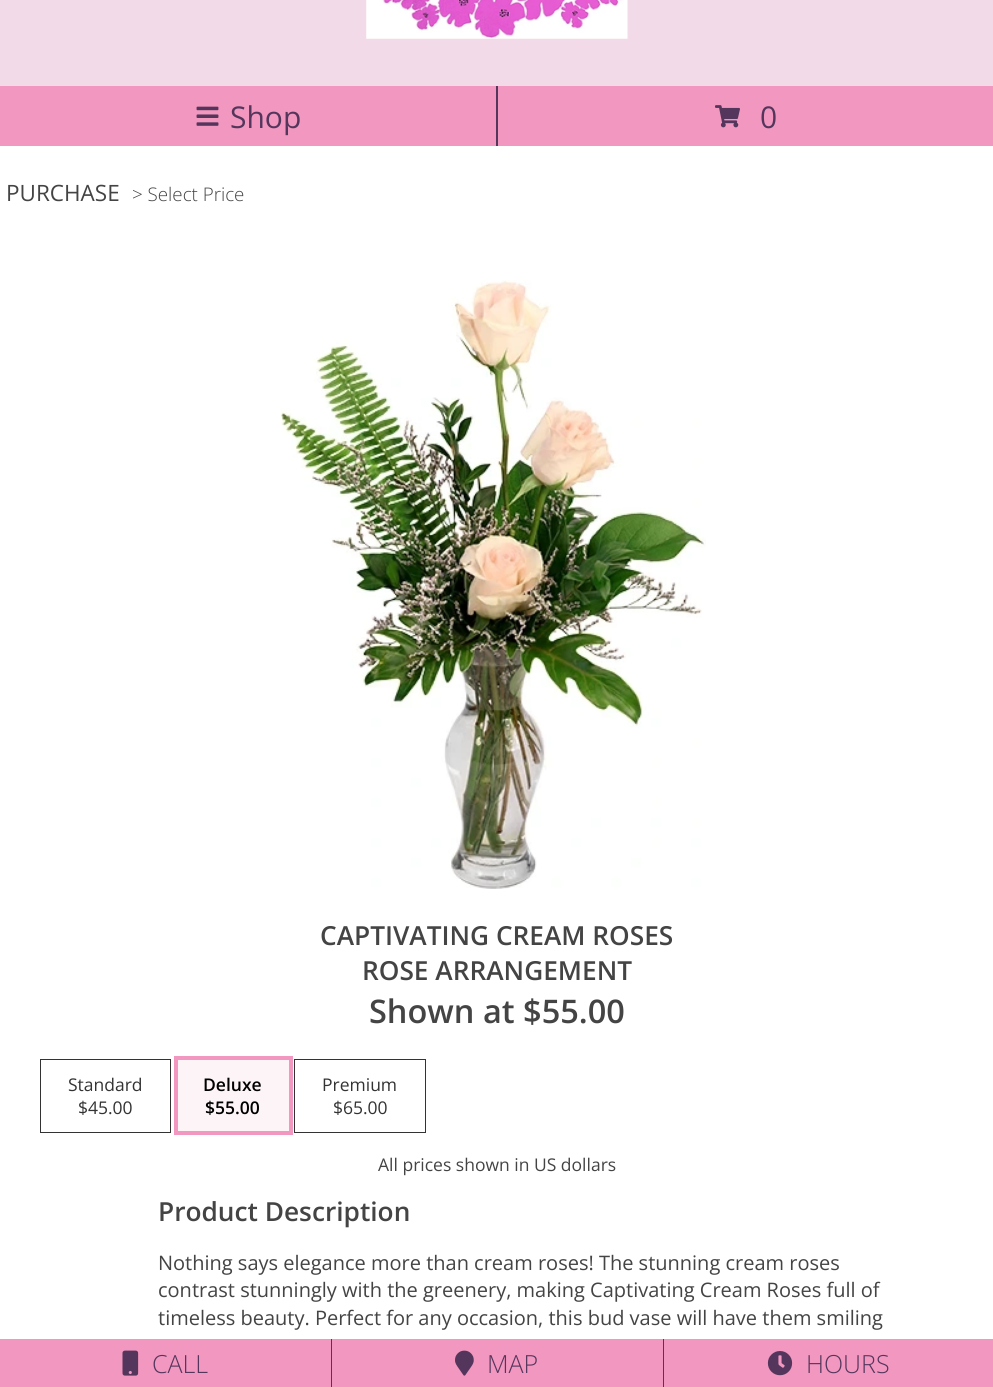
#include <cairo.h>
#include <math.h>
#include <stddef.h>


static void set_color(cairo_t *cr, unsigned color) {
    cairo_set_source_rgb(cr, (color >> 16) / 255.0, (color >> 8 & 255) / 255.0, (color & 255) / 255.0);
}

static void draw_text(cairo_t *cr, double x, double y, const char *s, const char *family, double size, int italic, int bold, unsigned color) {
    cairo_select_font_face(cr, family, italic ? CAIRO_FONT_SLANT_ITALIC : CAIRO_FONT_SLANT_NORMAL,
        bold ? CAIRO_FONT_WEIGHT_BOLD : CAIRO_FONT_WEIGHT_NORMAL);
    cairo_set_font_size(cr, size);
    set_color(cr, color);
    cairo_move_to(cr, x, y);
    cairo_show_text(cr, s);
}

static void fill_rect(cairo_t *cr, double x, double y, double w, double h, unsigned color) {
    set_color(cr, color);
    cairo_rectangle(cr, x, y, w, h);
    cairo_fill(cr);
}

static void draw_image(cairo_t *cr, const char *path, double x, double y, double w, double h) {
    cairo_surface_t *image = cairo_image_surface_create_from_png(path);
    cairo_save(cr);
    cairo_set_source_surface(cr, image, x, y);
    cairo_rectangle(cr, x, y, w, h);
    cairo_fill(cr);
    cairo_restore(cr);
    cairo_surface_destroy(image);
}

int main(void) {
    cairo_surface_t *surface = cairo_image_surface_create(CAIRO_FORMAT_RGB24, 993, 1387);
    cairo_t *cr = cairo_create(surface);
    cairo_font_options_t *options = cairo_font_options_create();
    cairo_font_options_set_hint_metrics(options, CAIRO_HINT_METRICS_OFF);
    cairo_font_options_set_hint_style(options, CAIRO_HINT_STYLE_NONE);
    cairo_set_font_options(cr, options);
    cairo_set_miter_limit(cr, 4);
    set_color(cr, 0xFFFFFF);
    cairo_paint(cr);
    fill_rect(cr, 0, 0, 993, 86, 0xF2DAE8);
    draw_image(cr, "assets/img1.png", 366, 0, 262, 39);
    fill_rect(cr, 496, 86, 2, 60, 0x54365D);
    fill_rect(cr, 0, 86, 496, 60, 0xF297BF);
    draw_image(cr, "assets/img2.png", 196, 106, 23, 20);
    draw_text(cr, 230, 128, "Shop", "Open Sans", 30, 0, 0, 0x54365D);
    fill_rect(cr, 498, 86, 495, 60, 0xF297BF);
    draw_image(cr, "assets/img3.png", 715, 105, 25, 23);
    draw_text(cr, 760, 128, "0", "Open Sans", 30, 0, 0, 0x54365D);
    draw_text(cr, 6, 201, "PURCHASE", "Open Sans", 22.5, 0, 0, 0x444444);
    draw_text(cr, 132, 201, "> Select Price", "Open Sans Light", 18.75, 0, 0, 0x444444);
    draw_image(cr, "assets/img4.png", 280, 280, 426, 609);
    draw_text(cr, 320, 945, "CAPTIVATING CREAM ROSES", "Open Sans SemiBold", 26.25, 0, 0, 0x444444);
    draw_text(cr, 362, 980, "ROSE ARRANGEMENT", "Open Sans SemiBold", 26.25, 0, 0, 0x444444);
    draw_text(cr, 369, 1023, "Shown at $55.00", "Open Sans SemiBold", 32.5, 0, 0, 0x444444);
    cairo_rectangle(cr, 40.5, 1059.5, 130, 73);
    set_color(cr, 0x333333);
    cairo_set_line_width(cr, 1);
    cairo_stroke(cr);
    draw_text(cr, 68, 1091, "Standard", "Open Sans", 17.5, 0, 0, 0x333333);
    draw_text(cr, 78, 1114, "$45.00", "Open Sans", 17.5, 0, 0, 0x333333);
    cairo_rectangle(cr, 176, 1058, 115, 75);
    set_color(cr, 0xF297BF);
    cairo_set_line_width(cr, 4);
    cairo_stroke(cr);
    fill_rect(cr, 178, 1060, 111, 71, 0xFDF4F8);
    draw_text(cr, 203, 1091, "Deluxe", "Open Sans SemiBold", 17.5, 0, 0, 0x000000);
    draw_text(cr, 205, 1114, "$55.00", "Open Sans SemiBold", 17.5, 0, 0, 0x000000);
    cairo_rectangle(cr, 294.5, 1059.5, 131, 73);
    set_color(cr, 0x333333);
    cairo_set_line_width(cr, 1);
    cairo_stroke(cr);
    draw_text(cr, 322, 1091, "Premium", "Open Sans", 17.5, 0, 0, 0x333333);
    draw_text(cr, 333, 1114, "$65.00", "Open Sans", 17.5, 0, 0, 0x333333);
    draw_text(cr, 378, 1171, "All prices shown in US dollars", "Open Sans", 17.5, 0, 0, 0x444444);
    draw_text(cr, 158, 1221, "Product Description", "Open Sans SemiBold", 26.25, 0, 0, 0x444444);
    draw_text(cr, 158, 1270, "Nothing says elegance more than cream roses! The stunning cream roses", "Open Sans", 20, 0, 0, 0x444444);
    draw_text(cr, 158, 1297, "contrast stunningly with the greenery, making Captivating Cream Roses full of", "Open Sans", 20, 0, 0, 0x444444);
    draw_text(cr, 158, 1325, "timeless beauty. Perfect for any occasion, this bud vase will have them smiling", "Open Sans", 20, 0, 0, 0x444444);
    fill_rect(cr, 0, 1339, 331, 48, 0xF297BF);
    draw_image(cr, "assets/img5.png", 122, 1350, 17, 26);
    draw_text(cr, 152, 1373, "CALL", "Open Sans Light", 25, 0, 0, 0x54365D);
    fill_rect(cr, 332, 1339, 331, 48, 0xF297BF);
    fill_rect(cr, 331, 1339, 1, 48, 0x54365D);
    draw_image(cr, "assets/img6.png", 455, 1350, 19, 26);
    draw_text(cr, 487, 1373, "MAP", "Open Sans Light", 25, 0, 0, 0x54365D);
    fill_rect(cr, 664, 1339, 329, 48, 0xF297BF);
    fill_rect(cr, 663, 1339, 1, 48, 0x54365D);
    draw_image(cr, "assets/img7.png", 767, 1351, 26, 25);
    draw_text(cr, 806, 1373, "HOURS", "Open Sans Light", 25, 0, 0, 0x54365D);
    cairo_surface_write_to_png(surface, "output.png");
    cairo_font_options_destroy(options);
    cairo_destroy(cr);
    cairo_surface_destroy(surface);
    return 0;
}
